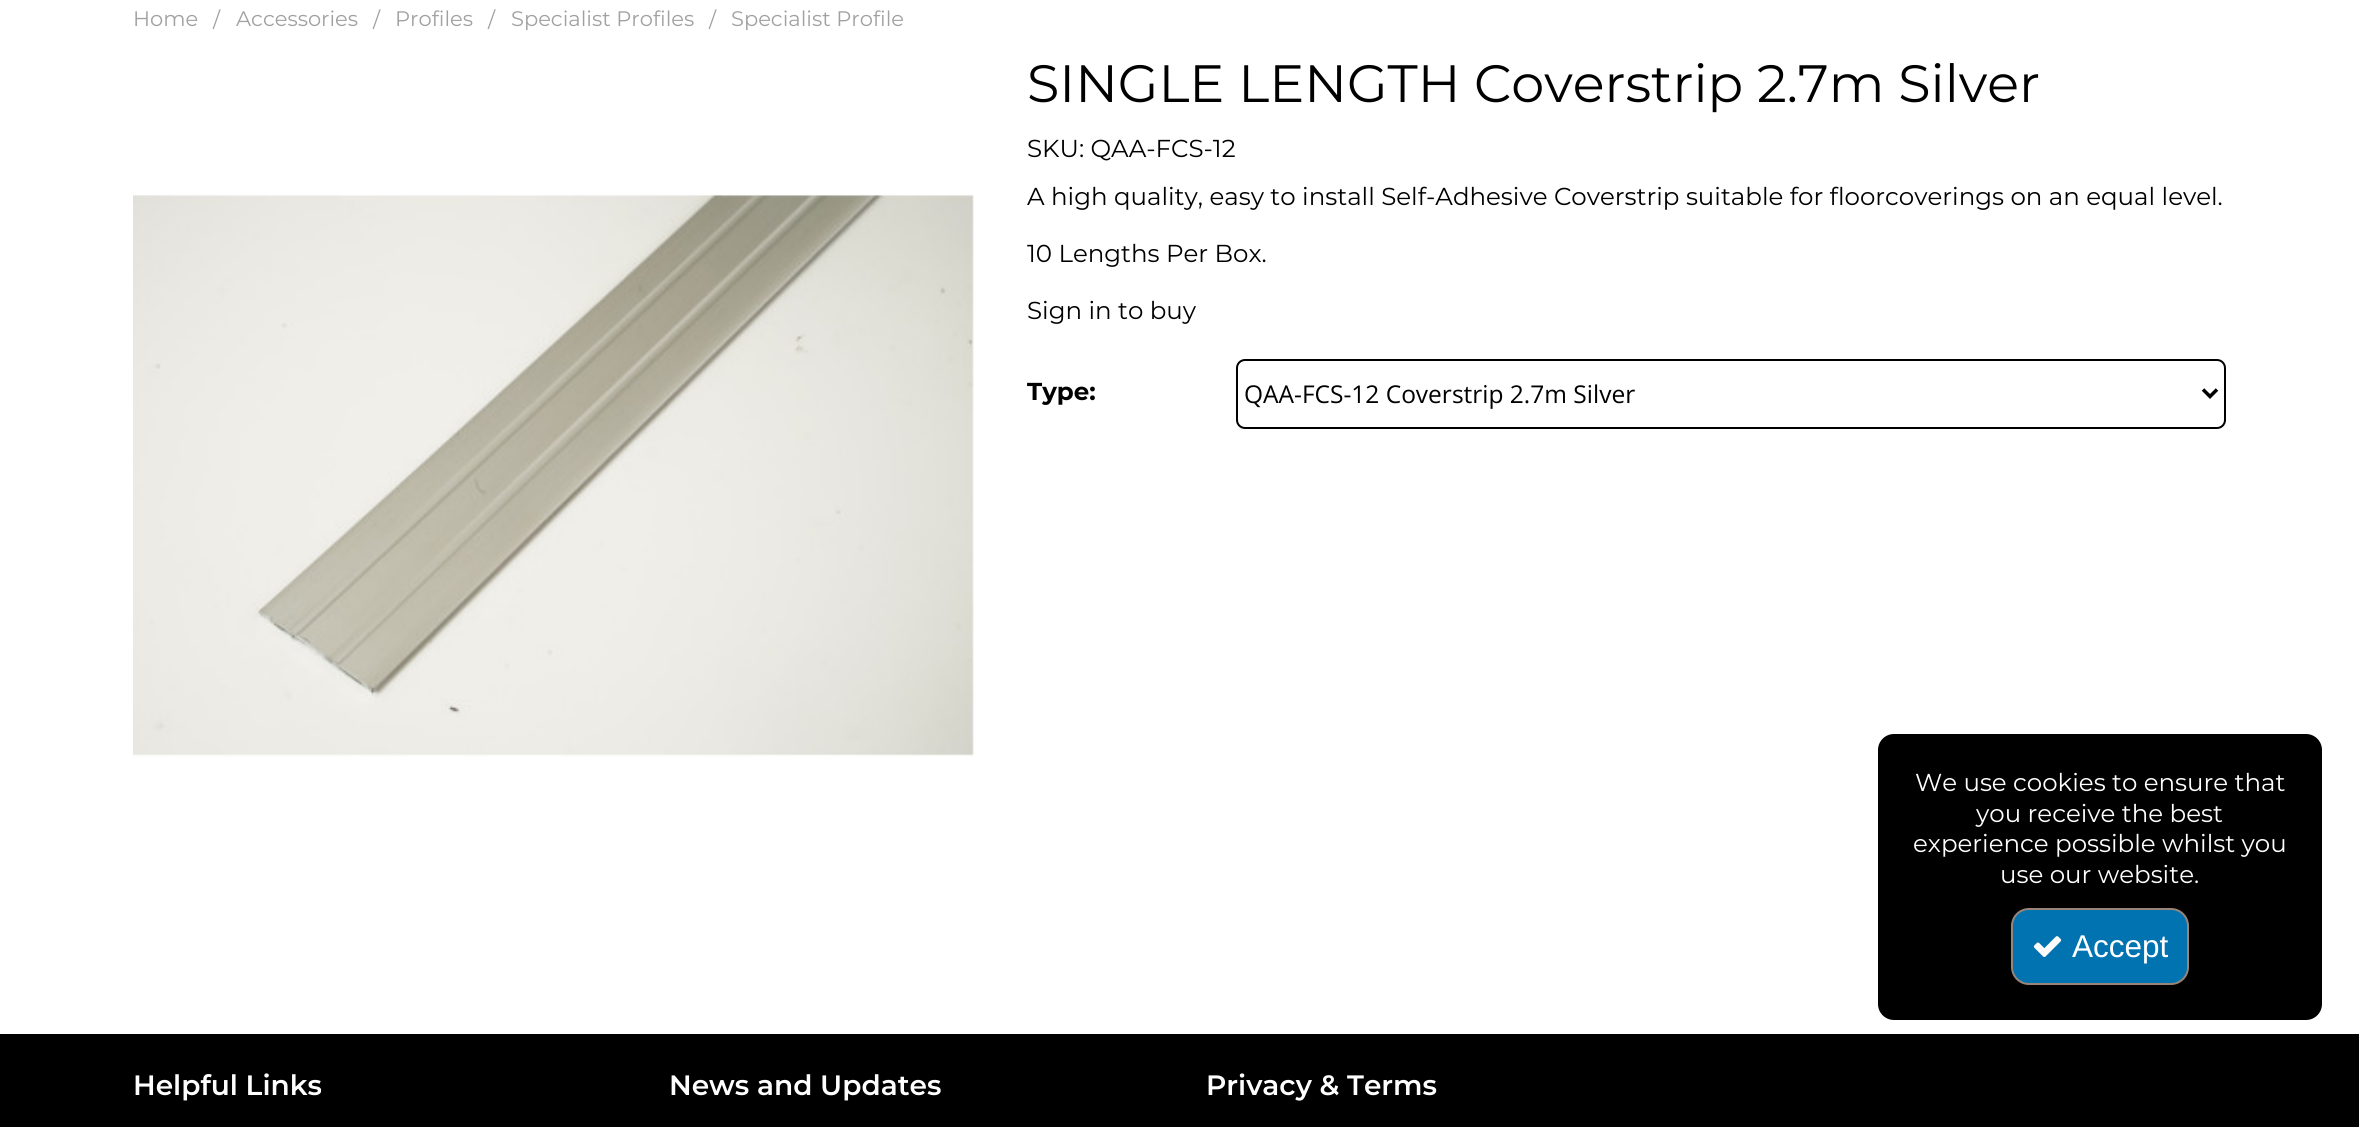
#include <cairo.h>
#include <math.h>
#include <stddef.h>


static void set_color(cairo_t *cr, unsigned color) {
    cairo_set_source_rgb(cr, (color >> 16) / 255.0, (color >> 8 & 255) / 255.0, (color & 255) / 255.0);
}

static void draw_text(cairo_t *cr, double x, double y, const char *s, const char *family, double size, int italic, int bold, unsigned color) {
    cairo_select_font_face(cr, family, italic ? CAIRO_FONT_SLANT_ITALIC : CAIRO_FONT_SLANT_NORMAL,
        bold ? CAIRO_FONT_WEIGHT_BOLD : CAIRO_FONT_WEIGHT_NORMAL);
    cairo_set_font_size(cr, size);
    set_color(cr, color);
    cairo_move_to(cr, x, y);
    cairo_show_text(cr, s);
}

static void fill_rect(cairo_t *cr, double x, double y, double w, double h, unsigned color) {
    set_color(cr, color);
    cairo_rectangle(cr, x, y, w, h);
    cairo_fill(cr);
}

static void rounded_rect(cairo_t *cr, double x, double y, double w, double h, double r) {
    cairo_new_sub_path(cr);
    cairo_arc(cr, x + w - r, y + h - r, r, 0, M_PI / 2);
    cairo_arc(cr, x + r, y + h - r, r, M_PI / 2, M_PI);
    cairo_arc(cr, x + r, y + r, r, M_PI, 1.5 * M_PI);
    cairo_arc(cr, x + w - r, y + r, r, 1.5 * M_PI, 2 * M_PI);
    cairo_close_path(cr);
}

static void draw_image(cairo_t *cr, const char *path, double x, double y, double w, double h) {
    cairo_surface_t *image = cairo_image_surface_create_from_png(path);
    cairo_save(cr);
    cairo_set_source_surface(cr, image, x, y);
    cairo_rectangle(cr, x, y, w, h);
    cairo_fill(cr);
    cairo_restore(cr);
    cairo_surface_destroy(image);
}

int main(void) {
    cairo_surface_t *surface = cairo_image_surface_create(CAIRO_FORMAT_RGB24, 2359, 1127);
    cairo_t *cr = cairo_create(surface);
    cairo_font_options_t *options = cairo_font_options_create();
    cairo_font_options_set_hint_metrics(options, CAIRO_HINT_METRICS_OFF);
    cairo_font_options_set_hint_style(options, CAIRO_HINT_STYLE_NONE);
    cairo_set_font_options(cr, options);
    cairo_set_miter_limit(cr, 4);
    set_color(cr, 0xFFFFFF);
    cairo_paint(cr);
    draw_text(cr, 133, 26, "Home", "Montserrat", 21, 0, 0, 0xA1A1A1);
    draw_text(cr, 213, 27, "/", "Montserrat", 21, 0, 0, 0xA1A1A1);
    draw_text(cr, 236, 26, "Accessories", "Montserrat", 21, 0, 0, 0xA1A1A1);
    draw_text(cr, 373, 27, "/", "Montserrat", 21, 0, 0, 0xA1A1A1);
    draw_text(cr, 395, 26, "Profiles", "Montserrat", 21, 0, 0, 0xA1A1A1);
    draw_text(cr, 488, 27, "/", "Montserrat", 21, 0, 0, 0xA1A1A1);
    draw_text(cr, 511, 26, "Specialist Profiles", "Montserrat", 21, 0, 0, 0xA1A1A1);
    draw_text(cr, 709, 27, "/", "Montserrat", 21, 0, 0, 0xA1A1A1);
    draw_text(cr, 731, 26, "Specialist Profile", "Montserrat", 21, 0, 0, 0xA1A1A1);
    draw_image(cr, "assets/img1.png", 133, 194, 841, 563);
    draw_text(cr, 1027, 102, "SINGLE LENGTH Coverstrip 2.7m Silver", "Montserrat", 52.5, 0, 0, 0x000000);
    draw_text(cr, 1027, 157, "SKU: QAA-FCS-12", "Montserrat", 24.5, 0, 0, 0x000000);
    draw_text(cr, 1027, 205, "A high quality, easy to install Self-Adhesive Coverstrip suitable for floorcoverings on an equal level.", "Montserrat", 24.5, 0, 0, 0x000000);
    draw_text(cr, 1027, 262, "10 Lengths Per Box.", "Montserrat", 24.5, 0, 0, 0x000000);
    draw_text(cr, 1027, 319, "Sign in to buy", "Montserrat", 24.5, 0, 0, 0x000000);
    draw_text(cr, 1027, 400, "Type:", "Montserrat", 24.5, 0, 1, 0x000000);
    rounded_rect(cr, 1237, 360, 988, 68, 8);
    cairo_stroke(cr);
    cairo_new_path(cr);
    cairo_move_to(cr, 2203, 389.5);
    cairo_line_to(cr, 2210, 396.5);
    cairo_line_to(cr, 2217, 389.5);
    cairo_set_line_width(cr, 3.5);
    cairo_stroke(cr);
    draw_text(cr, 1244, 403, "QAA-FCS-12 Coverstrip 2.7m Silver", "Open Sans", 24.5, 0, 0, 0x000000);
    fill_rect(cr, 0, 1034, 2359, 93, 0x000000);
    draw_text(cr, 133, 1095, "Helpful Links", "Montserrat SemiBold", 28, 0, 0, 0xFFFFFF);
    draw_text(cr, 669, 1095, "News and Updates", "Montserrat SemiBold", 28, 0, 0, 0xFFFFFF);
    draw_text(cr, 1206, 1095, "Privacy & Terms", "Montserrat SemiBold", 28, 0, 0, 0xFFFFFF);
    set_color(cr, 0x000000);
    rounded_rect(cr, 1877, 733, 446, 288, 17);
    cairo_fill_preserve(cr);
    set_color(cr, 0xFFFFFF);
    cairo_set_line_width(cr, 2);
    cairo_stroke(cr);
    draw_text(cr, 1915, 791, "We use cookies to ensure that", "Montserrat", 24.5, 0, 0, 0xFFFFFF);
    draw_text(cr, 1976, 822, "you receive the best", "Montserrat", 24.5, 0, 0, 0xFFFFFF);
    draw_text(cr, 1913, 852, "experience possible whilst you", "Montserrat", 24.5, 0, 0, 0xFFFFFF);
    draw_text(cr, 2000, 883, "use our website.", "Montserrat", 24.5, 0, 0, 0xFFFFFF);
    set_color(cr, 0x0073B0);
    rounded_rect(cr, 2012, 909, 176, 75, 17);
    cairo_fill_preserve(cr);
    set_color(cr, 0x988578);
    cairo_stroke(cr);
    draw_image(cr, "assets/img2.png", 2033, 936, 29, 21);
    draw_text(cr, 2072, 957, "Accept", "Liberation Sans", 31.5, 0, 0, 0xFFFFFF);
    cairo_surface_write_to_png(surface, "output.png");
    cairo_font_options_destroy(options);
    cairo_destroy(cr);
    cairo_surface_destroy(surface);
    return 0;
}
